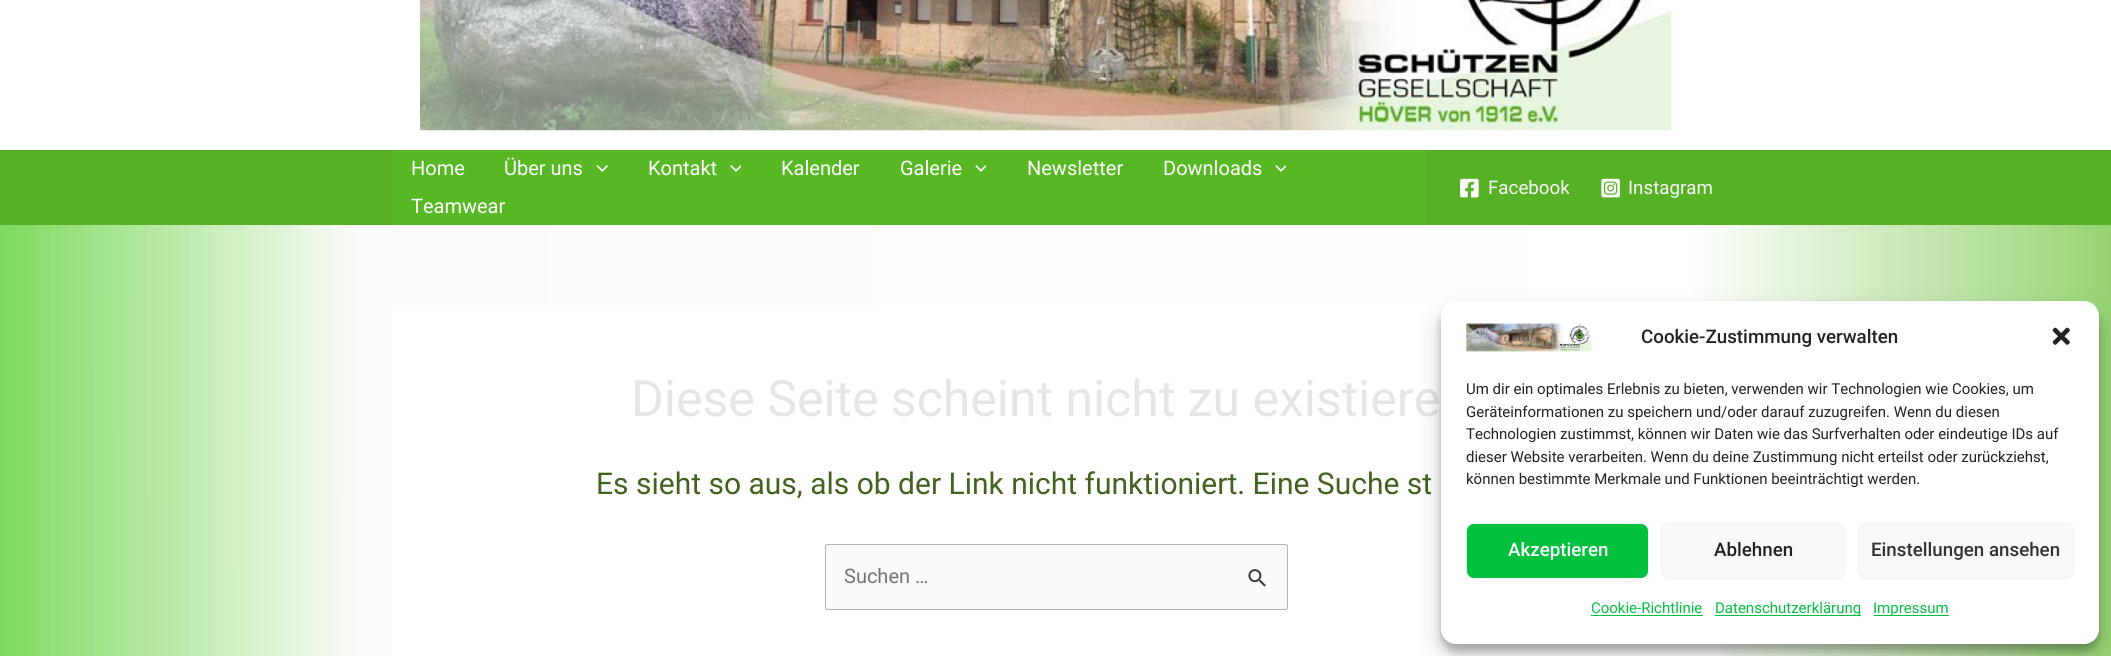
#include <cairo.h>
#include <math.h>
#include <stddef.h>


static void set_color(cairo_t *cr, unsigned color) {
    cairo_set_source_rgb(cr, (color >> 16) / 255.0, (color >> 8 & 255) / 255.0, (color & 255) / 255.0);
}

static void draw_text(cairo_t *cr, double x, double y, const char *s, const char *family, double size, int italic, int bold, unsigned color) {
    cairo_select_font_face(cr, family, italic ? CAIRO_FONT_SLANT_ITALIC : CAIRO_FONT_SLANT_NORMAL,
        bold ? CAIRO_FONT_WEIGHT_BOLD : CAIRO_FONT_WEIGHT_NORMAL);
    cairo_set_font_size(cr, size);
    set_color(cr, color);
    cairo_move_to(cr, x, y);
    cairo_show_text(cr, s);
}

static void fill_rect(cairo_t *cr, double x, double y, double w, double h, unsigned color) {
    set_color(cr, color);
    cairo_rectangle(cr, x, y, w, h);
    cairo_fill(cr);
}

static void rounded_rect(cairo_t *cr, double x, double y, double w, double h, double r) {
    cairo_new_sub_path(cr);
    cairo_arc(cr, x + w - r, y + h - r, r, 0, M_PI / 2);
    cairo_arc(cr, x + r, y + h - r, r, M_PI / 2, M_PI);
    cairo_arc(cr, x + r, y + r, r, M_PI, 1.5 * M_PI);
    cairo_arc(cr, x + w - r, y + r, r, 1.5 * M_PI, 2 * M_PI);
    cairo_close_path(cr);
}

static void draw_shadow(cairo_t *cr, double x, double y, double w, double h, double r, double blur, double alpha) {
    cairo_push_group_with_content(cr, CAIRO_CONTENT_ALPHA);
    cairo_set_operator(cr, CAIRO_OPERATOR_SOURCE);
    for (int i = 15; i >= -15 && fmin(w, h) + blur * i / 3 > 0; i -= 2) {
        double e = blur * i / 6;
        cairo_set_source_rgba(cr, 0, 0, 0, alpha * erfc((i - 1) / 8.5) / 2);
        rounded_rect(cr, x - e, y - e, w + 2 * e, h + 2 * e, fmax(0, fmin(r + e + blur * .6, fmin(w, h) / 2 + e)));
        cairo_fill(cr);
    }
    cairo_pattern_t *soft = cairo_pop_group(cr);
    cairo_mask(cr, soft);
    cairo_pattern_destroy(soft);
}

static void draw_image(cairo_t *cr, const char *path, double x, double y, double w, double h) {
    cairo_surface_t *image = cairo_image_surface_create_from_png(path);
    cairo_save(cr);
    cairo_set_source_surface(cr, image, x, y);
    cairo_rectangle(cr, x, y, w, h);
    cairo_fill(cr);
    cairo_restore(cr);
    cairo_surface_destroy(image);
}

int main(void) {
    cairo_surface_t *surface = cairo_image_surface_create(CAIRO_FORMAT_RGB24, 2111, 656);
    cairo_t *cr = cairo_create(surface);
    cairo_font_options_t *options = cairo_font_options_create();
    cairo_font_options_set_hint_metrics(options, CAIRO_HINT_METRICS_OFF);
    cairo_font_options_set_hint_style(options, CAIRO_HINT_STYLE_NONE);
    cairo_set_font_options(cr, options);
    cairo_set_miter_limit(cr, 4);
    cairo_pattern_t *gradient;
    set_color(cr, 0xFFFFFF);
    cairo_paint(cr);
    gradient = cairo_pattern_create_linear(0, 328, 2111, 327);
    cairo_pattern_add_color_stop_rgba(gradient, 0, 0.498, 0.855, 0.369, 1);
    cairo_pattern_add_color_stop_rgba(gradient, 0.17, 0.984, 0.984, 0.984, 1);
    cairo_pattern_add_color_stop_rgba(gradient, 0.8, 1, 1, 1, 1);
    cairo_pattern_add_color_stop_rgba(gradient, 1, 0.588, 0.831, 0.451, 1);
    cairo_set_source(cr, gradient);
    cairo_pattern_destroy(gradient);
    cairo_rectangle(cr, 0, 225, 2111, 431);
    cairo_fill(cr);
    draw_image(cr, "assets/img1.png", 420, 0, 1252, 131);
    fill_rect(cr, 0, 150, 2111, 75, 0x56B224);
    fill_rect(cr, 391, 150, 1035, 75, 0x58B824);
    draw_text(cr, 411, 175, "Home", "Roboto", 20, 0, 0, 0xFFFFFF);
    draw_text(cr, 504, 175, "Über uns", "Roboto", 20, 0, 0, 0xFFFFFF);
    draw_image(cr, "assets/img2.png", 596, 165, 12, 7);
    draw_text(cr, 648, 175, "Kontakt", "Roboto", 20, 0, 0, 0xFFFFFF);
    draw_image(cr, "assets/img3.png", 730, 165, 11, 7);
    draw_text(cr, 781, 175, "Kalender", "Roboto", 20, 0, 0, 0xFFFFFF);
    draw_text(cr, 900, 175, "Galerie", "Roboto", 20, 0, 0, 0xFFFFFF);
    draw_image(cr, "assets/img3.png", 975, 165, 11, 7);
    draw_text(cr, 1027, 175, "Newsletter", "Roboto", 20, 0, 0, 0xFFFFFF);
    draw_text(cr, 1163, 175, "Downloads", "Roboto", 20, 0, 0, 0xFFFFFF);
    draw_image(cr, "assets/img3.png", 1275, 165, 11, 7);
    draw_text(cr, 411, 213, "Teamwear", "Roboto", 20, 0, 0, 0xFFFFFF);
    draw_image(cr, "assets/img4.png", 1460, 178, 19, 20);
    draw_text(cr, 1488, 194, "Facebook", "Roboto", 18.75, 0, 0, 0xF8F8F8);
    draw_image(cr, "assets/img5.png", 1601, 178, 19, 20);
    draw_text(cr, 1628, 194, "Instagram", "Roboto", 18.75, 0, 0, 0xF8F8F8);
    fill_rect(cr, 391, 305, 1330, 351, 0xFFFFFF);
    draw_text(cr, 631, 416, "Diese Seite scheint nicht zu existiere", "Roboto", 50, 0, 0, 0xE5E5E5);
    draw_text(cr, 596, 494, "Es sieht so aus, als ob der Link nicht funktioniert. Eine Suche st", "Roboto", 30, 0, 0, 0x42621F);
    set_color(cr, 0xFAFAFA);
    rounded_rect(cr, 825.5, 544.5, 462, 65, 2);
    cairo_fill_preserve(cr);
    set_color(cr, 0xADB6BE);
    cairo_set_line_width(cr, 1);
    cairo_stroke(cr);
    draw_text(cr, 844, 583, "Suchen …", "Roboto", 20, 0, 0, 0x757575);
    draw_image(cr, "assets/img6.png", 1248, 569, 18, 18);
    set_color(cr, 0x000000);
    draw_shadow(cr, 1441, 309, 658, 342, 15, 4, 0.23);
    draw_shadow(cr, 1441, 314, 658, 342, 15, 12.5, 0.19);
    set_color(cr, 0xFFFFFF);
    rounded_rect(cr, 1441, 301, 658, 343, 15);
    cairo_fill(cr);
    draw_image(cr, "assets/img7.png", 1466, 323, 126, 29);
    draw_text(cr, 1641, 343, "Cookie-Zustimmung verwalten", "Roboto Medium", 18.75, 0, 0, 0x222222);
    draw_image(cr, "assets/img8.png", 2052, 327, 18, 18);
    draw_text(cr, 1466, 394, "Um dir ein optimales Erlebnis zu bieten, verwenden wir Technologien wie Cookies, um", "Roboto", 15, 0, 0, 0x222222);
    draw_text(cr, 1466, 417, "Geräteinformationen zu speichern und/oder darauf zuzugreifen. Wenn du diesen", "Roboto", 15, 0, 0, 0x222222);
    draw_text(cr, 1466, 439, "Technologien zustimmst, können wir Daten wie das Surfverhalten oder eindeutige IDs auf", "Roboto", 15, 0, 0, 0x222222);
    draw_text(cr, 1466, 462, "dieser Website verarbeiten. Wenn du deine Zustimmung nicht erteilst oder zurückziehst,", "Roboto", 15, 0, 0, 0x222222);
    draw_text(cr, 1466, 484, "können bestimmte Merkmale und Funktionen beeinträchtigt werden.", "Roboto", 15, 0, 0, 0x222222);
    set_color(cr, 0x00C13D);
    rounded_rect(cr, 1466.5, 523.5, 182, 55, 7.5);
    cairo_fill_preserve(cr);
    set_color(cr, 0xF2F2F2);
    cairo_stroke(cr);
    draw_text(cr, 1508, 556, "Akzeptieren", "Roboto Medium", 18.75, 0, 0, 0xFFFFFF);
    set_color(cr, 0xF9F9F9);
    rounded_rect(cr, 1661.5, 523.5, 183, 55, 7.5);
    cairo_fill_preserve(cr);
    set_color(cr, 0xF2F2F2);
    cairo_stroke(cr);
    draw_text(cr, 1714, 556, "Ablehnen", "Roboto Medium", 18.75, 0, 0, 0x222222);
    set_color(cr, 0xF9F9F9);
    rounded_rect(cr, 1858.5, 523.5, 215, 55, 7.5);
    cairo_fill_preserve(cr);
    set_color(cr, 0xF2F2F2);
    cairo_stroke(cr);
    draw_text(cr, 1871, 556, "Einstellungen ansehen", "Roboto Medium", 18.75, 0, 0, 0x333333);
    draw_text(cr, 1591, 613, "Cookie-Richtlinie", "Roboto", 15, 0, 0, 0x00C13D);
    fill_rect(cr, 1591, 615, 112, 1, 0x00C13D);
    fill_rect(cr, 1715, 615, 146, 1, 0x00C13D);
    draw_text(cr, 1715, 613, "Datenschutzerklärung", "Roboto", 15, 0, 0, 0x00C13D);
    fill_rect(cr, 1874, 615, 75, 1, 0x00C13D);
    draw_text(cr, 1873, 613, "Impressum", "Roboto", 15, 0, 0, 0x00C13D);
    cairo_surface_write_to_png(surface, "output.png");
    cairo_font_options_destroy(options);
    cairo_destroy(cr);
    cairo_surface_destroy(surface);
    return 0;
}
